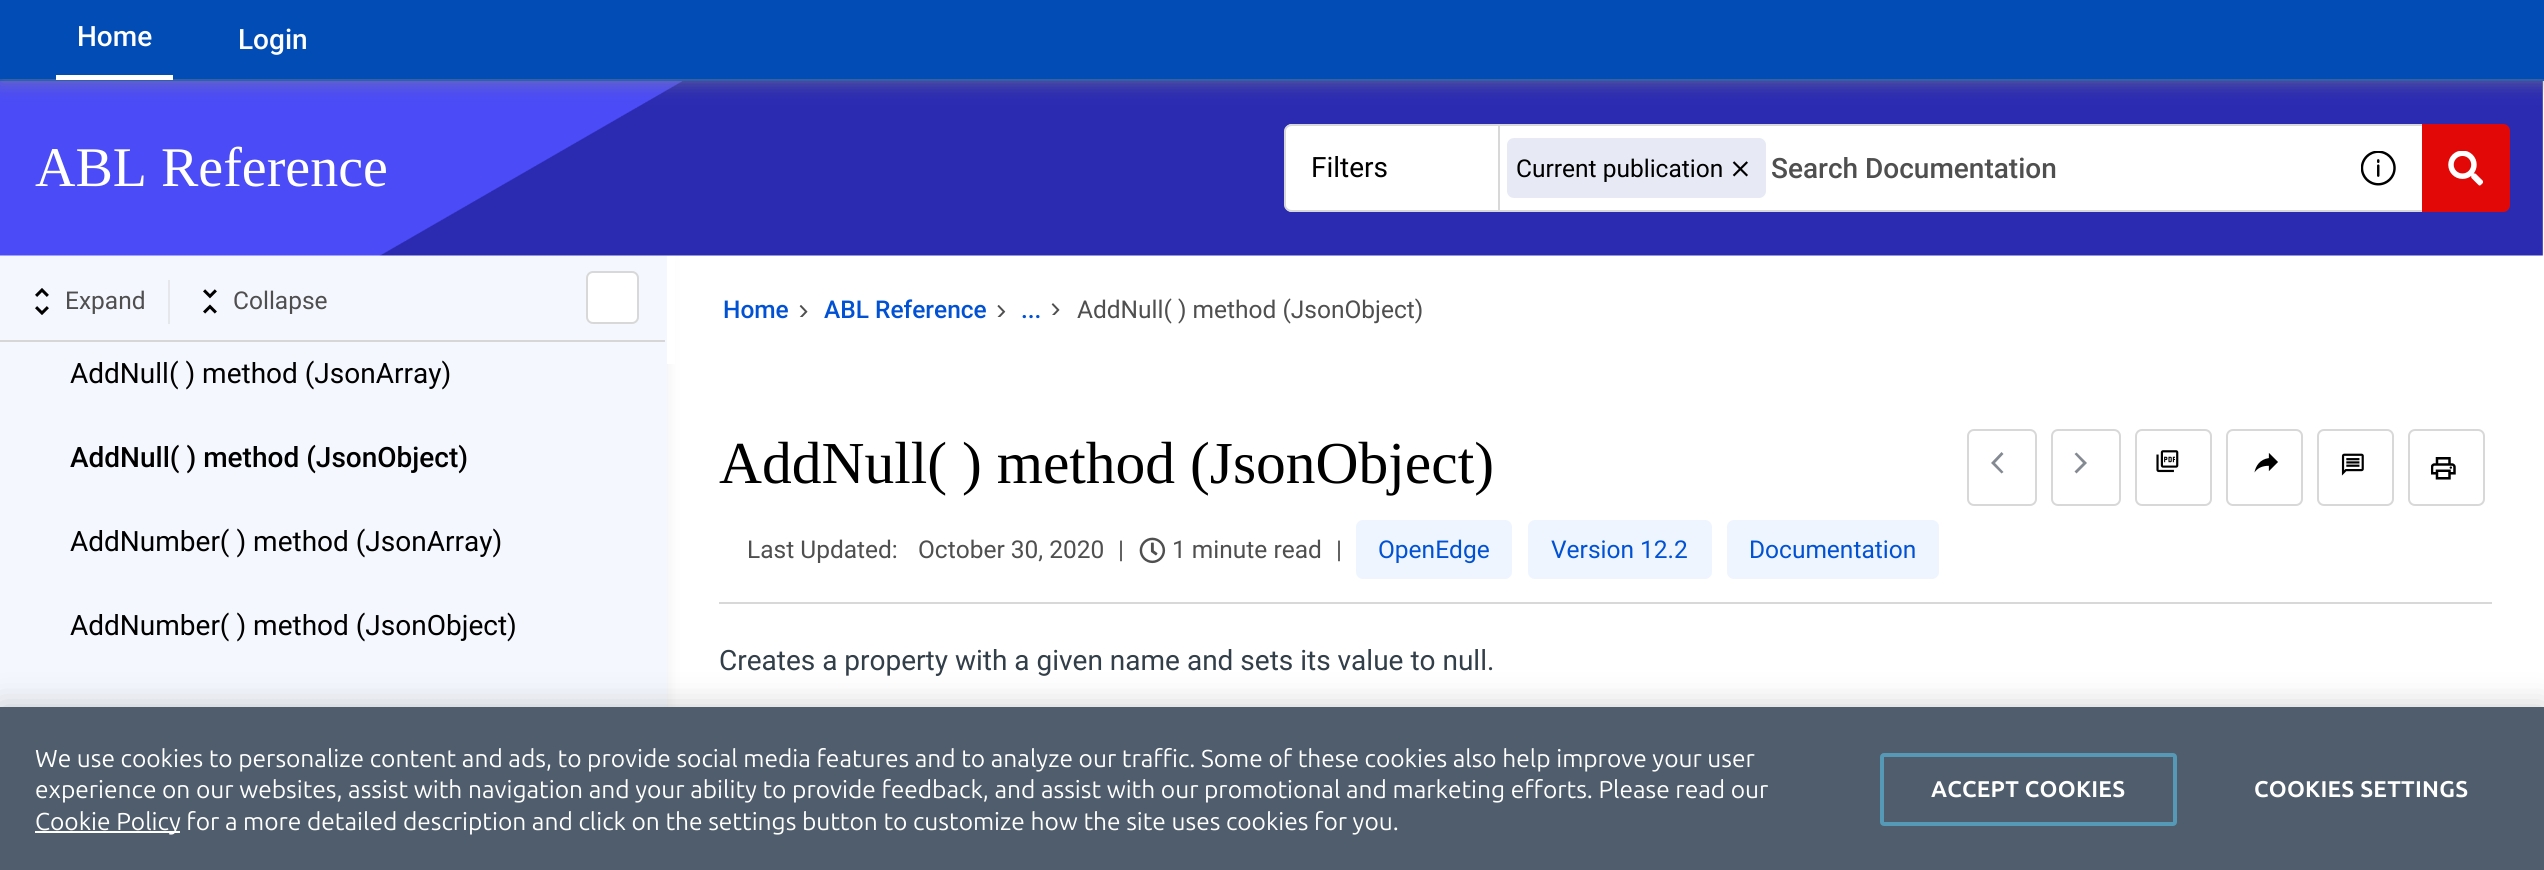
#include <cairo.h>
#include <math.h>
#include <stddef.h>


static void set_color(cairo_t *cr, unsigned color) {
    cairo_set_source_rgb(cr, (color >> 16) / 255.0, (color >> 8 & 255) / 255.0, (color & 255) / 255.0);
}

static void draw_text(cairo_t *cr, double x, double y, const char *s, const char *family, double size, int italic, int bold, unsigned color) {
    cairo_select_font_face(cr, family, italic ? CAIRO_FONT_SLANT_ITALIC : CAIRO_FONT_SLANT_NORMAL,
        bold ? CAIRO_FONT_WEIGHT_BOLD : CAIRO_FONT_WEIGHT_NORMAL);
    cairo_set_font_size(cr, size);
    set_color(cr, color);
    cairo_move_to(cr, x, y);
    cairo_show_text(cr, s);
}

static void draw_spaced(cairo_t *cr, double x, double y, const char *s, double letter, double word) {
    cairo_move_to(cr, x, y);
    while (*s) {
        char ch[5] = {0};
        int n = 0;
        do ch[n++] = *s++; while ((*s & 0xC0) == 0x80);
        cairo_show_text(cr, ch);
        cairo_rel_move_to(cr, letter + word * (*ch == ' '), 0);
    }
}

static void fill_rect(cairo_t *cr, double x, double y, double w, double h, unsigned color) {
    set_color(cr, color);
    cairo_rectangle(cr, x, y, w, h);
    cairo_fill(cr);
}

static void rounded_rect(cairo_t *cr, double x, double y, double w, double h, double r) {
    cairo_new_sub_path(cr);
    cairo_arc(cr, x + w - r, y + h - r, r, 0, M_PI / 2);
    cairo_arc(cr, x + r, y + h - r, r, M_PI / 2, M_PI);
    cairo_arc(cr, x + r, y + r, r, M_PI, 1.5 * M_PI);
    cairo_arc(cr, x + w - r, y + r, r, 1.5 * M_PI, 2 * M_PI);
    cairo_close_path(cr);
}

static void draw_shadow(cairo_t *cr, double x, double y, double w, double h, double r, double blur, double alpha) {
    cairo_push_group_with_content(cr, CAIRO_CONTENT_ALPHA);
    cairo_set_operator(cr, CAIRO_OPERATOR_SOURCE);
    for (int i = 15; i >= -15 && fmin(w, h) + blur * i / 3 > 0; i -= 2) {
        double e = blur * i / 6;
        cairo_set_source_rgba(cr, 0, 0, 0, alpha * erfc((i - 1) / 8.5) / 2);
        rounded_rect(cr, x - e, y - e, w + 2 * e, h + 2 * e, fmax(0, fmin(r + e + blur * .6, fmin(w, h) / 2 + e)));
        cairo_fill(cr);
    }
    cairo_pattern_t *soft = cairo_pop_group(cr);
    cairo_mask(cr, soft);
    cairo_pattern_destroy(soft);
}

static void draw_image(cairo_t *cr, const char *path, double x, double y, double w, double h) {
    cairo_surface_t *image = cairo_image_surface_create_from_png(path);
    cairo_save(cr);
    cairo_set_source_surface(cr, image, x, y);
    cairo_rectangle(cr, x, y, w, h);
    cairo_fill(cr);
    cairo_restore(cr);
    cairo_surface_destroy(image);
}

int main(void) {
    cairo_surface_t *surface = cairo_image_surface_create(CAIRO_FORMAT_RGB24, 2544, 870);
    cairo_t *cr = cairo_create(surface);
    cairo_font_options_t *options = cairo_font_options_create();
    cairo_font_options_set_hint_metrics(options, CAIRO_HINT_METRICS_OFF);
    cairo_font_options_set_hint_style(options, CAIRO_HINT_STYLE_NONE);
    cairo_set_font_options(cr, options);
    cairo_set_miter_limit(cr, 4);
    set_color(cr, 0xFFFFFF);
    cairo_paint(cr);
    fill_rect(cr, 0, 0, 2544, 81, 0x024DB5);
    set_color(cr, 0xB5B7B3);
    draw_shadow(cr, 0, 259, 667, 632, 0, 7, 0.25);
    draw_image(cr, "assets/img1.png", 0, 81, 2543, 175);
    cairo_save(cr);
    cairo_set_fill_rule(cr, CAIRO_FILL_RULE_EVEN_ODD);
    cairo_new_path(cr);
    cairo_move_to(cr, 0, 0);
    cairo_line_to(cr, 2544, 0);
    cairo_line_to(cr, 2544, 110);
    cairo_line_to(cr, 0, 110);
    cairo_close_path(cr);
    cairo_move_to(cr, 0, 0);
    cairo_line_to(cr, 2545, 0);
    cairo_line_to(cr, 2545, 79);
    cairo_line_to(cr, 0, 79);
    cairo_close_path(cr);
    cairo_clip(cr);
    set_color(cr, 0x838486);
    draw_shadow(cr, 0, 4, 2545, 78, 0, 9, 0.62);
    cairo_restore(cr);
    fill_rect(cr, 56, 75, 117, 5, 0xFFFFFF);
    draw_text(cr, 77, 46, "Home", "Roboto Medium", 28, 0, 0, 0xFFFFFF);
    draw_text(cr, 238, 49, "Login", "Roboto Medium", 28, 0, 0, 0xFFFFFF);
    draw_text(cr, 35, 186, "ABL Reference", "Liberation Serif", 56, 0, 0, 0xFFFFFF);
    cairo_new_path(cr);
    cairo_move_to(cr, 1292, 124);
    cairo_line_to(cr, 1498, 124);
    cairo_line_to(cr, 1498, 212);
    cairo_line_to(cr, 1292, 212);
    cairo_curve_to(cr, 1288, 212, 1285, 209, 1285, 205);
    cairo_line_to(cr, 1285, 131);
    cairo_curve_to(cr, 1285, 127, 1288, 124, 1292, 124);
    cairo_close_path(cr);
    cairo_fill(cr);
    set_color(cr, 0xD8D8D8);
    cairo_set_fill_rule(cr, CAIRO_FILL_RULE_EVEN_ODD);
    cairo_new_path(cr);
    cairo_move_to(cr, 1292, 124);
    cairo_line_to(cr, 1498, 124);
    cairo_line_to(cr, 1498, 212);
    cairo_line_to(cr, 1292, 212);
    cairo_curve_to(cr, 1288, 212, 1284, 209, 1284, 205);
    cairo_line_to(cr, 1284, 131);
    cairo_curve_to(cr, 1284, 127, 1288, 124, 1292, 124);
    cairo_close_path(cr);
    cairo_move_to(cr, 1292, 126);
    cairo_line_to(cr, 1498, 126);
    cairo_line_to(cr, 1498, 210);
    cairo_line_to(cr, 1292, 210);
    cairo_curve_to(cr, 1289, 210, 1286, 208, 1286, 205);
    cairo_line_to(cr, 1286, 131);
    cairo_curve_to(cr, 1286, 128, 1289, 126, 1292, 126);
    cairo_close_path(cr);
    cairo_fill(cr);
    draw_text(cr, 1311, 177, "Filters", "Roboto", 28, 0, 0, 0x000000);
    fill_rect(cr, 1500, 126, 922, 84, 0xFFFFFF);
    fill_rect(cr, 1498, 124, 924, 2, 0xD8D8D8);
    fill_rect(cr, 1498, 210, 924, 2, 0xD8D8D8);
    draw_image(cr, "assets/img2.png", 2361, 151, 35, 35);
    set_color(cr, 0xE30808);
    cairo_new_path(cr);
    cairo_move_to(cr, 2422, 124);
    cairo_line_to(cr, 2503, 124);
    cairo_curve_to(cr, 2507, 124, 2510, 127, 2510, 131);
    cairo_line_to(cr, 2510, 205);
    cairo_curve_to(cr, 2510, 209, 2507, 212, 2503, 212);
    cairo_line_to(cr, 2422, 212);
    cairo_close_path(cr);
    cairo_fill(cr);
    draw_image(cr, "assets/img3.png", 2448, 151, 35, 35);
    set_color(cr, 0xE7EAF4);
    rounded_rect(cr, 1507, 138, 259, 60, 7);
    cairo_fill(cr);
    draw_text(cr, 1516, 177, "Current publication", "Roboto", 24.5, 0, 0, 0x000000);
    draw_image(cr, "assets/img4.png", 1732, 161, 16, 16);
    fill_rect(cr, 1498, 124, 2, 88, 0xD8D8D8);
    draw_text(cr, 1771, 178, "Search Documentation", "Roboto Medium", 28, 0, 0, 0x4F4F4F);
    fill_rect(cr, 0, 256, 667, 451, 0xF4F7FD);
    fill_rect(cr, 0, 340, 665, 2, 0xD6D6D6);
    draw_image(cr, "assets/img5.png", 35, 288, 14, 27);
    draw_text(cr, 65, 309, "Expand", "Roboto", 24.5, 0, 0, 0x4F4F4F);
    fill_rect(cr, 168, 280, 2, 44, 0xE5E7EA);
    draw_image(cr, "assets/img6.png", 203, 289, 14, 25);
    draw_text(cr, 233, 309, "Collapse", "Roboto", 24.5, 0, 0, 0x4F4F4F);
    set_color(cr, 0xFFFFFF);
    rounded_rect(cr, 587, 272, 51, 51, 6);
    cairo_fill_preserve(cr);
    set_color(cr, 0xD8D8D8);
    cairo_stroke(cr);
    draw_text(cr, 70, 383, "AddNull( ) method (JsonArray)", "Roboto", 28, 0, 0, 0x000000);
    draw_text(cr, 70, 467, "AddNull( ) method (JsonObject)", "Roboto Medium", 28, 0, 0, 0x000000);
    draw_text(cr, 70, 551, "AddNumber( ) method (JsonArray)", "Roboto", 28, 0, 0, 0x000000);
    draw_text(cr, 70, 635, "AddNumber( ) method (JsonObject)", "Roboto", 28, 0, 0, 0x000000);
    fill_rect(cr, 667, 256, 8, 108, 0xFFFFFF);
    draw_text(cr, 723, 318, "Home", "Roboto Medium", 24.5, 0, 0, 0x0051D3);
    draw_image(cr, "assets/img7.png", 799, 305, 9, 12);
    draw_text(cr, 824, 318, "ABL Reference", "Roboto Medium", 24.5, 0, 0, 0x0051D3);
    draw_image(cr, "assets/img8.png", 997, 305, 9, 12);
    draw_image(cr, "assets/img9.png", 1051, 303, 9, 12);
    draw_text(cr, 1021, 318, "...", "Roboto Medium", 24.5, 0, 0, 0x0051D3);
    draw_text(cr, 1077, 318, "AddNull( ) method (JsonObject)", "Roboto", 24.5, 0, 0, 0x4F4F4F);
    fill_rect(cr, 719, 602, 1773, 2, 0xD8D8D8);
    draw_text(cr, 719, 483, "AddNull( ) method (JsonObject)", "Liberation Serif", 59.5, 0, 0, 0x000000);
    rounded_rect(cr, 1968, 430, 68, 75, 6);
    set_color(cr, 0xD8D8D8);
    cairo_stroke(cr);
    set_color(cr, 0x838A91);
    cairo_set_fill_rule(cr, CAIRO_FILL_RULE_WINDING);
    cairo_new_path(cr);
    cairo_move_to(cr, 2003.5, 454);
    cairo_line_to(cr, 2001.5, 452);
    cairo_line_to(cr, 1991, 463);
    cairo_line_to(cr, 2001.5, 473.5);
    cairo_line_to(cr, 2003.5, 472);
    cairo_line_to(cr, 1995, 463);
    cairo_close_path(cr);
    cairo_fill(cr);
    rounded_rect(cr, 2052, 430, 68, 75, 6);
    set_color(cr, 0xD8D8D8);
    cairo_stroke(cr);
    set_color(cr, 0x838A91);
    cairo_new_path(cr);
    cairo_move_to(cr, 2074.5, 471.5);
    cairo_line_to(cr, 2076.5, 473.5);
    cairo_line_to(cr, 2087, 463);
    cairo_line_to(cr, 2076.5, 452.5);
    cairo_line_to(cr, 2074.5, 454);
    cairo_line_to(cr, 2083, 463);
    cairo_close_path(cr);
    cairo_fill(cr);
    rounded_rect(cr, 2136, 430, 75, 75, 6);
    set_color(cr, 0xD8D8D8);
    cairo_stroke(cr);
    draw_image(cr, "assets/img10.png", 2156, 450, 23, 23);
    rounded_rect(cr, 2227, 430, 75, 75, 6);
    cairo_stroke(cr);
    draw_image(cr, "assets/img11.png", 2254, 453, 24, 20);
    rounded_rect(cr, 2318, 430, 75, 75, 6);
    cairo_stroke(cr);
    draw_image(cr, "assets/img12.png", 2341, 453, 23, 23);
    rounded_rect(cr, 2409, 430, 75, 75, 6);
    cairo_stroke(cr);
    draw_image(cr, "assets/img13.png", 2431, 457, 25, 23);
    draw_text(cr, 747, 558, "Last Updated:", "Roboto", 24.5, 0, 0, 0x4F4F4F);
    draw_text(cr, 918, 558, "October 30, 2020", "Roboto", 24.5, 0, 0, 0x4F4F4F);
    draw_text(cr, 1118, 558, "|", "Roboto", 24.5, 0, 0, 0x4F4F4F);
    draw_image(cr, "assets/img14.png", 1139, 537, 27, 27);
    draw_text(cr, 1172, 558, "1 minute read", "Roboto", 24.5, 0, 0, 0x4F4F4F);
    draw_text(cr, 1336, 558, "|", "Roboto", 24.5, 0, 0, 0x4F4F4F);
    set_color(cr, 0xEEF5FF);
    rounded_rect(cr, 1356, 520, 156, 59, 7);
    cairo_fill(cr);
    draw_text(cr, 1378, 558, "OpenEdge", "Roboto", 24.5, 0, 0, 0x0051D3);
    set_color(cr, 0xEEF5FF);
    rounded_rect(cr, 1528, 520, 184, 59, 7);
    cairo_fill(cr);
    draw_text(cr, 1551, 558, "Version 12.2", "Roboto", 24.5, 0, 0, 0x0051D3);
    set_color(cr, 0xEEF5FF);
    rounded_rect(cr, 1727, 520, 212, 59, 7);
    cairo_fill(cr);
    draw_text(cr, 1749, 558, "Documentation", "Roboto", 24.5, 0, 0, 0x0051D3);
    draw_text(cr, 719, 670, "Creates a property with a given name and sets its value to null.", "Roboto", 28, 0, 0, 0x323E48);
    set_color(cr, 0x000000);
    draw_shadow(cr, 0, 707, 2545, 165, 0, 16, 0.2);
    fill_rect(cr, 0, 707, 2544, 163, 0x4F5D6C);
    draw_text(cr, 35, 767, "We use cookies to personalize content and ads, to provide social media features and to analyze our traffic. Some of these cookies also help improve your user", "Ubuntu", 24.5, 0, 0, 0xFFFFFF);
    draw_text(cr, 35, 798, "experience on our websites, assist with navigation and your ability to provide feedback, and assist with our promotional and marketing efforts. Please read our", "Ubuntu", 24.5, 0, 0, 0xFFFFFF);
    fill_rect(cr, 35, 831, 145, 2, 0xFFFFFF);
    draw_text(cr, 35, 830, "Cookie Policy for a more detailed description and click on the settings button to customize how the site uses cookies for you.", "Ubuntu", 24.5, 0, 0, 0xFFFFFF);
    rounded_rect(cr, 1882, 755, 293, 69, 2);
    set_color(cr, 0x5699B6);
    cairo_set_line_width(cr, 4);
    cairo_stroke(cr);
    cairo_select_font_face(cr, "Ubuntu", CAIRO_FONT_SLANT_NORMAL, CAIRO_FONT_WEIGHT_BOLD);
    cairo_set_font_size(cr, 22.75);
    set_color(cr, 0xFFFFFF);
    draw_spaced(cr, 1931, 797, "ACCEPT COOKIES", 0.25, 0);
    draw_spaced(cr, 2254, 797, "COOKIES SETTINGS", 0.25, 0);
    cairo_surface_write_to_png(surface, "output.png");
    cairo_font_options_destroy(options);
    cairo_destroy(cr);
    cairo_surface_destroy(surface);
    return 0;
}
